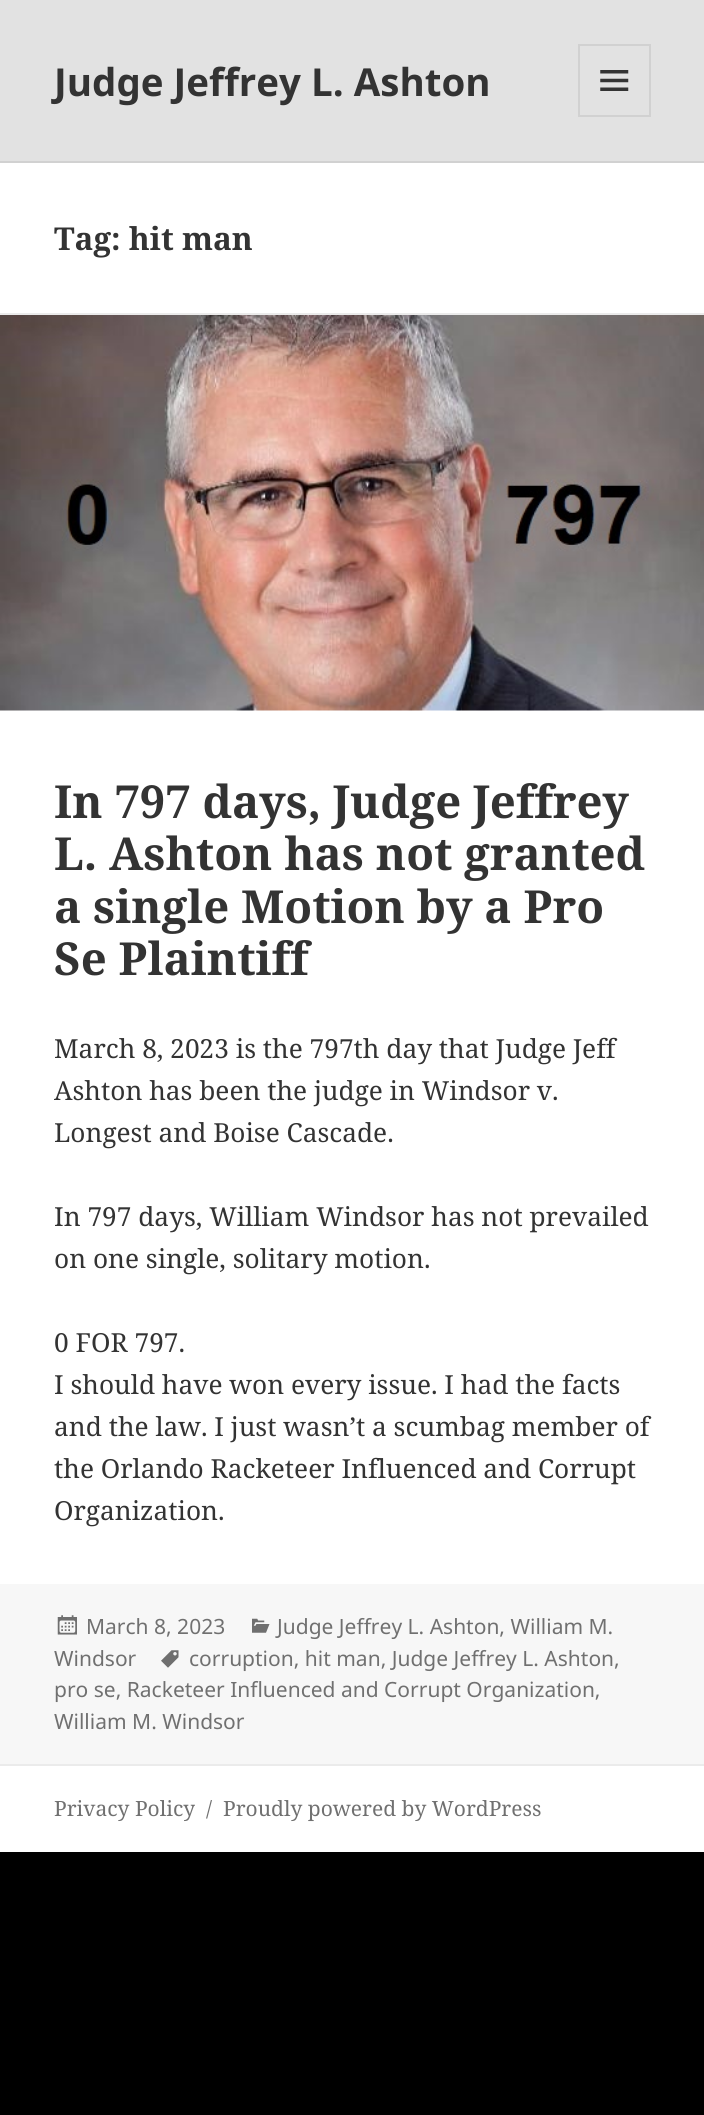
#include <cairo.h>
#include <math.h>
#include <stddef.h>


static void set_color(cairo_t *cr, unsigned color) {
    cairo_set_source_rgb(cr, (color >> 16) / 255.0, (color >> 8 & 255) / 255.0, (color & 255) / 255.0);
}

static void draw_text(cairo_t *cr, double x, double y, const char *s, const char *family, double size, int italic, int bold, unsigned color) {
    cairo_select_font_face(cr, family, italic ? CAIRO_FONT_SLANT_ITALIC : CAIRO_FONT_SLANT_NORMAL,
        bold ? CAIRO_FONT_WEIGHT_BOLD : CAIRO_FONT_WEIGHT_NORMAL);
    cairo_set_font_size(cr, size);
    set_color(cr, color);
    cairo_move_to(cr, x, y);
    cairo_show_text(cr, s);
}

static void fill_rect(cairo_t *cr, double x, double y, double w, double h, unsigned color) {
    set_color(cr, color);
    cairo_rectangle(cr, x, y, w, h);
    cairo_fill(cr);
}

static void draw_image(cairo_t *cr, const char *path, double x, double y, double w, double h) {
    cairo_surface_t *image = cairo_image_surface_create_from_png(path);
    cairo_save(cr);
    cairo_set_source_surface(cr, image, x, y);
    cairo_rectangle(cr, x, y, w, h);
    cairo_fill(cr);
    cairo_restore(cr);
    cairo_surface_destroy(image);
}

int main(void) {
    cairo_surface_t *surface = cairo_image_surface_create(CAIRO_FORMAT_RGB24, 704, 2115);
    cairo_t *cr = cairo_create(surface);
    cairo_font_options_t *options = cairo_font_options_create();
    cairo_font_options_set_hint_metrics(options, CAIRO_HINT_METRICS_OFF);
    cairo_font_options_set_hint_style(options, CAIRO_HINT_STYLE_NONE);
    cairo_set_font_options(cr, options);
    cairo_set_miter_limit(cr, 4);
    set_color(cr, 0x000000);
    cairo_paint(cr);
    fill_rect(cr, 0, 0, 704, 161, 0xE2E2E2);
    fill_rect(cr, 0, 161, 704, 2, 0xD1D1D1);
    draw_text(cr, 54, 96, "Judge Jeffrey L. Ashton", "Noto Sans", 38.5, 0, 1, 0x333333);
    cairo_rectangle(cr, 579, 45, 71, 71);
    set_color(cr, 0xD1D1D1);
    cairo_stroke(cr);
    draw_image(cr, "assets/img1.png", 600, 70, 29, 21);
    fill_rect(cr, 0, 163, 704, 150, 0xFFFFFF);
    fill_rect(cr, 0, 313, 704, 2, 0xEBEBEB);
    draw_text(cr, 54, 250, "Tag: hit man", "Noto Serif", 31.5, 0, 1, 0x333333);
    fill_rect(cr, 0, 710, 704, 874, 0xFFFFFF);
    draw_image(cr, "assets/img2.png", 0, 315, 704, 396);
    draw_text(cr, 54, 818, "In 797 days, Judge Jeffrey", "Noto Serif", 45.5, 0, 1, 0x333333);
    draw_text(cr, 54, 870, "L. Ashton has not granted", "Noto Serif", 45.5, 0, 1, 0x333333);
    draw_text(cr, 54, 923, "a single Motion by a Pro", "Noto Serif", 45.5, 0, 1, 0x333333);
    draw_text(cr, 54, 975, "Se Plaintiff", "Noto Serif", 45.5, 0, 1, 0x333333);
    draw_text(cr, 54, 1058, "March 8, 2023 is the 797th day that Judge Jeff", "Noto Serif", 26.25, 0, 0, 0x333333);
    draw_text(cr, 54, 1100, "Ashton has been the judge in Windsor v.", "Noto Serif", 26.25, 0, 0, 0x333333);
    draw_text(cr, 54, 1142, "Longest and Boise Cascade.", "Noto Serif", 26.25, 0, 0, 0x333333);
    draw_text(cr, 54, 1226, "In 797 days, William Windsor has not prevailed", "Noto Serif", 26.25, 0, 0, 0x333333);
    draw_text(cr, 54, 1268, "on one single, solitary motion.", "Noto Serif", 26.25, 0, 0, 0x333333);
    draw_text(cr, 54, 1352, "0 FOR 797.", "Noto Serif", 26.25, 0, 0, 0x333333);
    draw_text(cr, 54, 1394, "I should have won every issue. I had the facts", "Noto Serif", 26.25, 0, 0, 0x333333);
    draw_text(cr, 54, 1436, "and the law. I just wasn’t a scumbag member of", "Noto Serif", 26.25, 0, 0, 0x333333);
    draw_text(cr, 54, 1478, "the Orlando Racketeer Influenced and Corrupt", "Noto Serif", 26.25, 0, 0, 0x333333);
    draw_text(cr, 54, 1520, "Organization.", "Noto Serif", 26.25, 0, 0, 0x333333);
    fill_rect(cr, 0, 1584, 704, 180, 0xF7F7F7);
    draw_image(cr, "assets/img3.png", 252, 1618, 18, 15);
    draw_text(cr, 277, 1634, "Judge Jeffrey L. Ashton, William M.", "Noto Sans", 21, 0, 0, 0x707070);
    draw_text(cr, 54, 1666, "Windsor", "Noto Sans", 21, 0, 0, 0x707070);
    draw_image(cr, "assets/img4.png", 57, 1615, 20, 20);
    draw_text(cr, 86, 1634, "March 8, 2023", "Noto Sans", 21, 0, 0, 0x707070);
    draw_image(cr, "assets/img5.png", 161, 1650, 18, 18);
    draw_text(cr, 189, 1666, "corruption, hit man, Judge Jeffrey L. Ashton,", "Noto Sans", 21, 0, 0, 0x707070);
    draw_text(cr, 54, 1697, "pro se, Racketeer Influenced and Corrupt Organization,", "Noto Sans", 21, 0, 0, 0x707070);
    draw_text(cr, 54, 1729, "William M. Windsor", "Noto Sans", 21, 0, 0, 0x707070);
    fill_rect(cr, 0, 1766, 704, 86, 0xFFFFFF);
    fill_rect(cr, 0, 1764, 704, 2, 0xEBEBEB);
    draw_text(cr, 54, 1816, "Privacy Policy", "Noto Serif", 21, 0, 0, 0x707070);
    draw_text(cr, 206, 1816, "/", "Noto Serif", 21, 0, 0, 0x707070);
    draw_text(cr, 223, 1816, "Proudly powered by WordPress", "Noto Serif", 21, 0, 0, 0x707070);
    cairo_surface_write_to_png(surface, "output.png");
    cairo_font_options_destroy(options);
    cairo_destroy(cr);
    cairo_surface_destroy(surface);
    return 0;
}
